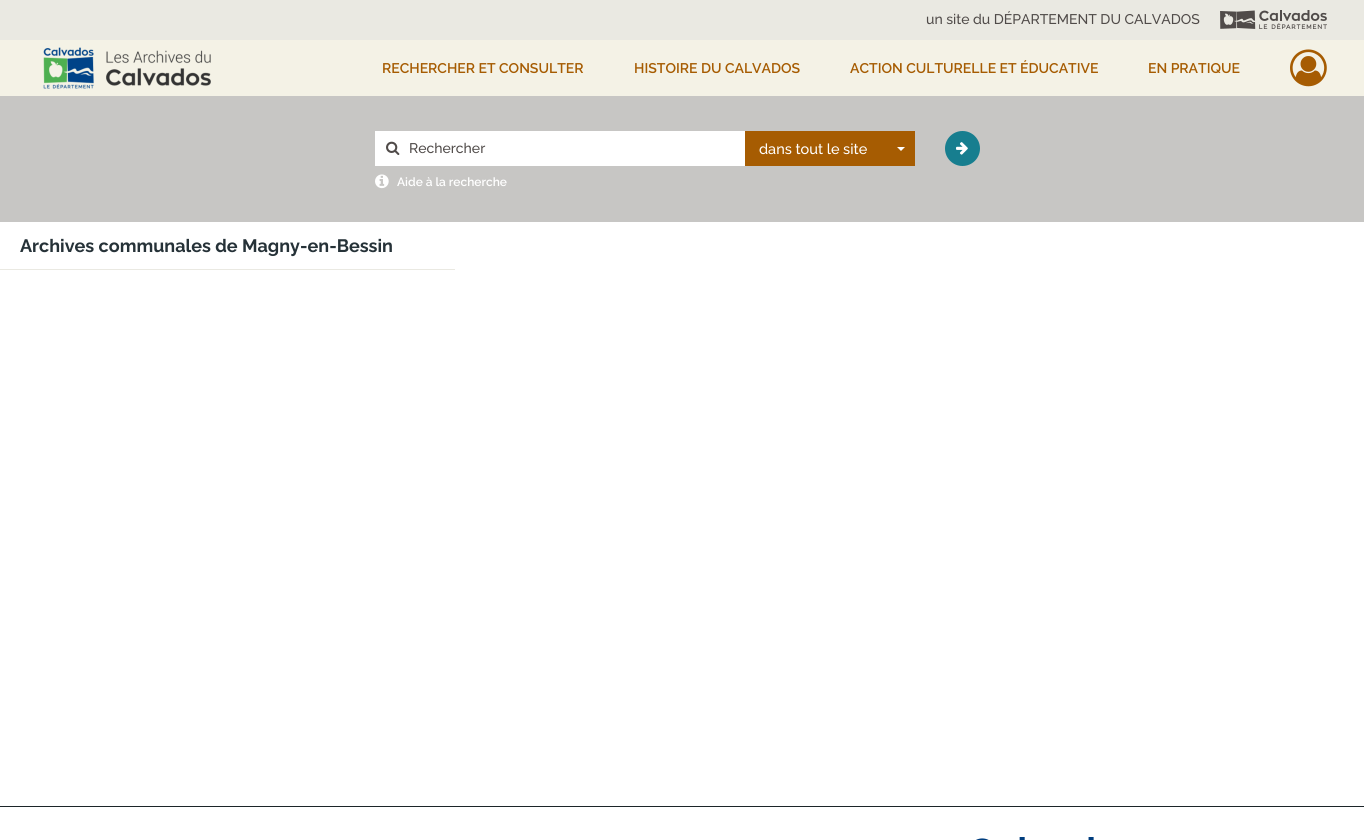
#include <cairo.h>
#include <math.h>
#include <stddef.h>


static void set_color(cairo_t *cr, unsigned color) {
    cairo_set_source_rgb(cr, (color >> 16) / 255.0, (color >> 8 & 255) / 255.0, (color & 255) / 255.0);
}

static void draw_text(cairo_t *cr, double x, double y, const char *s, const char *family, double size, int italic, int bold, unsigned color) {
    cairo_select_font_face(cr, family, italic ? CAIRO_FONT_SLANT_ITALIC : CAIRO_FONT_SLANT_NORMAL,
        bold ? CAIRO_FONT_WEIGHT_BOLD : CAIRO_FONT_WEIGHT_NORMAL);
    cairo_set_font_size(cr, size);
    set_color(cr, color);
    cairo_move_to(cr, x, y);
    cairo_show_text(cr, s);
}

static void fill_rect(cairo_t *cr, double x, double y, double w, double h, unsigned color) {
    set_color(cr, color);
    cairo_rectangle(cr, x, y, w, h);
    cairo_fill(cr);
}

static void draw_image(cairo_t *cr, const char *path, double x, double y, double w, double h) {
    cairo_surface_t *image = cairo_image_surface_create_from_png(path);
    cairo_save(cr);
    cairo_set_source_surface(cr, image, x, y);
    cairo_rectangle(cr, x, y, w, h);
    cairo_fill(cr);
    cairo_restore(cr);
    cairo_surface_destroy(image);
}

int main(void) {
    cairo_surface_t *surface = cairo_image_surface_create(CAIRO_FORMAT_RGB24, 1364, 840);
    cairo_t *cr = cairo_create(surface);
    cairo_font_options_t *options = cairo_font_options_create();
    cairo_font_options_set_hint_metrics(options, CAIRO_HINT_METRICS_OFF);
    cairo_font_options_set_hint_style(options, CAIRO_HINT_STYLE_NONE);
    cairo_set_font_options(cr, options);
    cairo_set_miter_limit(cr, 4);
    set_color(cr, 0xFFFFFF);
    cairo_paint(cr);
    fill_rect(cr, 0, 0, 1364, 40, 0xEAE9E2);
    draw_text(cr, 926, 24, "un site du DÉPARTEMENT DU CALVADOS", "Raleway Medium", 14, 0, 0, 0x504B49);
    draw_image(cr, "assets/img1.png", 1220, 10, 107, 19);
    fill_rect(cr, 0, 40, 1364, 56, 0xF4F2E6);
    draw_image(cr, "assets/img2.png", 43, 47, 168, 42);
    draw_text(cr, 382, 73, "RECHERCHER ET CONSULTER", "Raleway SemiBold", 14, 0, 0, 0xA65C02);
    draw_text(cr, 634, 73, "HISTOIRE DU CALVADOS", "Raleway SemiBold", 14, 0, 0, 0xA65C02);
    draw_text(cr, 850, 73, "ACTION CULTURELLE ET ÉDUCATIVE", "Raleway SemiBold", 14, 0, 0, 0xA65C02);
    draw_text(cr, 1148, 73, "EN PRATIQUE", "Raleway SemiBold", 14, 0, 0, 0xA65C02);
    draw_image(cr, "assets/img3.png", 1290, 49, 37, 38);
    fill_rect(cr, 0, 96, 1364, 126, 0xC7C6C4);
    fill_rect(cr, 375, 131, 370, 35, 0xFFFFFF);
    draw_image(cr, "assets/img4.png", 386, 141, 14, 14);
    draw_text(cr, 409, 153, "Rechercher", "Raleway Medium", 14, 0, 0, 0x504B49);
    fill_rect(cr, 745, 131, 170, 35, 0xA65C02);
    draw_text(cr, 759, 154, "dans tout le site", "Raleway Medium", 14.5, 0, 0, 0xFFFFFF);
    cairo_new_path(cr);
    cairo_move_to(cr, 897, 147);
    cairo_line_to(cr, 905, 147);
    cairo_line_to(cr, 901, 151);
    cairo_close_path(cr);
    cairo_fill(cr);
    set_color(cr, 0x177E8F);
    cairo_arc(cr, 962.5, 148.5, 17.5, 0, 2 * M_PI);
    cairo_fill(cr);
    draw_image(cr, "assets/img5.png", 956, 142, 12, 13);
    draw_image(cr, "assets/img6.png", 375, 174, 14, 15);
    draw_text(cr, 397, 186, "Aide à la recherche", "Raleway SemiBold", 12, 0, 0, 0xFFFFFF);
    fill_rect(cr, 0, 269, 455, 1, 0xEAE9E2);
    draw_text(cr, 20, 252, "Archives communales de Magny-en-Bessin", "Raleway", 18, 0, 1, 0x263238);
    fill_rect(cr, 0, 806, 1364, 1, 0x1C2529);
    draw_image(cr, "assets/img7.png", 976, 837, 118, 3);
    cairo_surface_write_to_png(surface, "output.png");
    cairo_font_options_destroy(options);
    cairo_destroy(cr);
    cairo_surface_destroy(surface);
    return 0;
}
